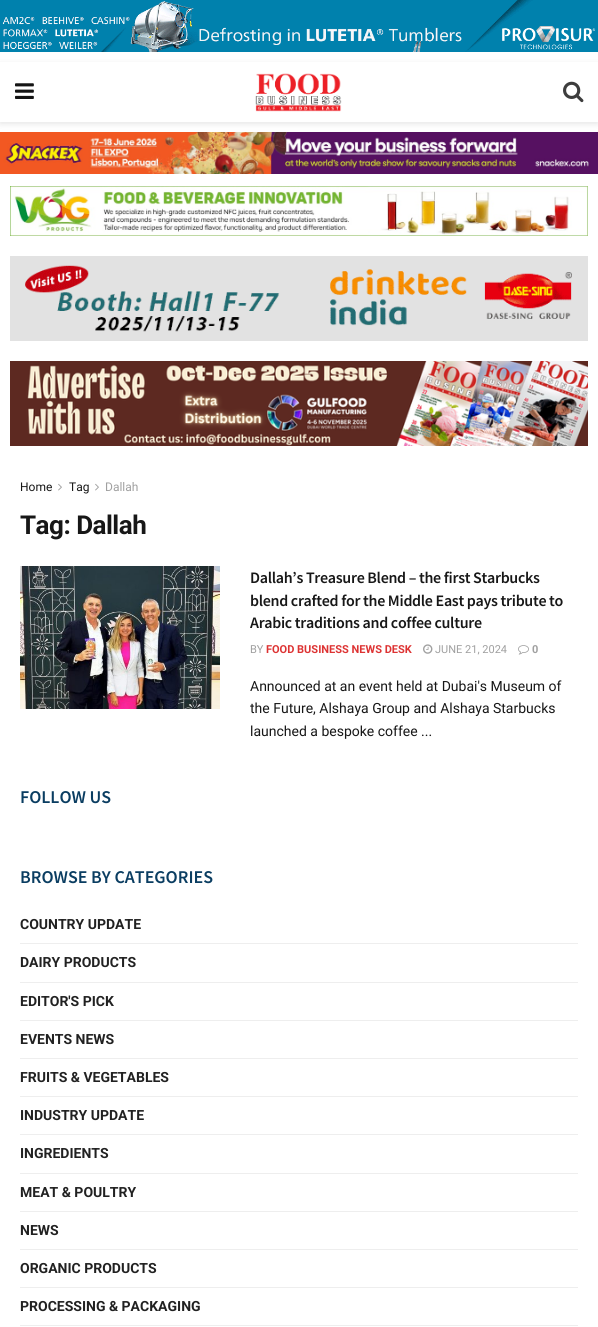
#include <cairo.h>
#include <math.h>
#include <stddef.h>


static void set_color(cairo_t *cr, unsigned color) {
    cairo_set_source_rgb(cr, (color >> 16) / 255.0, (color >> 8 & 255) / 255.0, (color & 255) / 255.0);
}

static void draw_text(cairo_t *cr, double x, double y, const char *s, const char *family, double size, int italic, int bold, unsigned color) {
    cairo_select_font_face(cr, family, italic ? CAIRO_FONT_SLANT_ITALIC : CAIRO_FONT_SLANT_NORMAL,
        bold ? CAIRO_FONT_WEIGHT_BOLD : CAIRO_FONT_WEIGHT_NORMAL);
    cairo_set_font_size(cr, size);
    set_color(cr, color);
    cairo_move_to(cr, x, y);
    cairo_show_text(cr, s);
}

static void draw_spaced(cairo_t *cr, double x, double y, const char *s, double letter, double word) {
    cairo_move_to(cr, x, y);
    while (*s) {
        char ch[5] = {0};
        int n = 0;
        do ch[n++] = *s++; while ((*s & 0xC0) == 0x80);
        cairo_show_text(cr, ch);
        cairo_rel_move_to(cr, letter + word * (*ch == ' '), 0);
    }
}

static void fill_rect(cairo_t *cr, double x, double y, double w, double h, unsigned color) {
    set_color(cr, color);
    cairo_rectangle(cr, x, y, w, h);
    cairo_fill(cr);
}

static void rounded_rect(cairo_t *cr, double x, double y, double w, double h, double r) {
    cairo_new_sub_path(cr);
    cairo_arc(cr, x + w - r, y + h - r, r, 0, M_PI / 2);
    cairo_arc(cr, x + r, y + h - r, r, M_PI / 2, M_PI);
    cairo_arc(cr, x + r, y + r, r, M_PI, 1.5 * M_PI);
    cairo_arc(cr, x + w - r, y + r, r, 1.5 * M_PI, 2 * M_PI);
    cairo_close_path(cr);
}

static void draw_shadow(cairo_t *cr, double x, double y, double w, double h, double r, double blur, double alpha) {
    cairo_push_group_with_content(cr, CAIRO_CONTENT_ALPHA);
    cairo_set_operator(cr, CAIRO_OPERATOR_SOURCE);
    for (int i = 15; i >= -15 && fmin(w, h) + blur * i / 3 > 0; i -= 2) {
        double e = blur * i / 6;
        cairo_set_source_rgba(cr, 0, 0, 0, alpha * erfc((i - 1) / 8.5) / 2);
        rounded_rect(cr, x - e, y - e, w + 2 * e, h + 2 * e, fmax(0, fmin(r + e + blur * .6, fmin(w, h) / 2 + e)));
        cairo_fill(cr);
    }
    cairo_pattern_t *soft = cairo_pop_group(cr);
    cairo_mask(cr, soft);
    cairo_pattern_destroy(soft);
}

static void draw_image(cairo_t *cr, const char *path, double x, double y, double w, double h) {
    cairo_surface_t *image = cairo_image_surface_create_from_png(path);
    cairo_save(cr);
    cairo_set_source_surface(cr, image, x, y);
    cairo_rectangle(cr, x, y, w, h);
    cairo_fill(cr);
    cairo_restore(cr);
    cairo_surface_destroy(image);
}

int main(void) {
    cairo_surface_t *surface = cairo_image_surface_create(CAIRO_FORMAT_RGB24, 598, 1327);
    cairo_t *cr = cairo_create(surface);
    cairo_font_options_t *options = cairo_font_options_create();
    cairo_font_options_set_hint_metrics(options, CAIRO_HINT_METRICS_OFF);
    cairo_font_options_set_hint_style(options, CAIRO_HINT_STYLE_NONE);
    cairo_set_font_options(cr, options);
    cairo_set_miter_limit(cr, 4);
    set_color(cr, 0xFFFFFF);
    cairo_paint(cr);
    draw_image(cr, "assets/img1.png", 0, 0, 598, 52);
    draw_image(cr, "assets/img5.png", 0, 132, 598, 42);
    cairo_save(cr);
    cairo_set_fill_rule(cr, CAIRO_FILL_RULE_EVEN_ODD);
    cairo_new_path(cr);
    cairo_move_to(cr, 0, 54);
    cairo_line_to(cr, 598, 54);
    cairo_line_to(cr, 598, 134);
    cairo_line_to(cr, 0, 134);
    cairo_close_path(cr);
    cairo_move_to(cr, 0, 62);
    cairo_line_to(cr, 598, 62);
    cairo_line_to(cr, 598, 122);
    cairo_line_to(cr, 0, 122);
    cairo_close_path(cr);
    cairo_clip(cr);
    set_color(cr, 0x000000);
    draw_shadow(cr, 0, 64, 598, 60, 0, 3, 0.1);
    cairo_restore(cr);
    draw_image(cr, "assets/img2.png", 15, 83, 19, 16);
    draw_image(cr, "assets/img3.png", 255, 73, 87, 39);
    draw_image(cr, "assets/img4.png", 563, 81, 21, 22);
    draw_image(cr, "assets/img6.png", 10, 186, 578, 50);
    draw_image(cr, "assets/img7.png", 10, 256, 578, 85);
    draw_image(cr, "assets/img8.png", 10, 361, 578, 85);
    draw_text(cr, 20, 491, "Home", "Roboto", 12, 0, 0, 0x171717);
    draw_image(cr, "assets/img9.png", 58, 483, 4, 8);
    draw_text(cr, 69, 491, "Tag", "Roboto", 12, 0, 0, 0x171717);
    draw_image(cr, "assets/img9.png", 95, 483, 4, 8);
    draw_text(cr, 105, 491, "Dallah", "Roboto", 12, 0, 0, 0xA0A0A0);
    cairo_select_font_face(cr, "Roboto", CAIRO_FONT_SLANT_NORMAL, CAIRO_FONT_WEIGHT_BOLD);
    cairo_set_font_size(cr, 26);
    set_color(cr, 0x171717);
    draw_spaced(cr, 20, 534, "Tag: Dallah", -0.5, 0);
    draw_image(cr, "assets/img10.png", 20, 566, 200, 143);
    cairo_select_font_face(cr, "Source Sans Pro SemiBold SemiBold", CAIRO_FONT_SLANT_NORMAL, CAIRO_FONT_WEIGHT_NORMAL);
    cairo_set_font_size(cr, 16);
    draw_spaced(cr, 250, 583, "Dallah’s Treasure Blend – the first Starbucks", -0.3, 0);
    draw_spaced(cr, 250, 606, "blend crafted for the Middle East pays tribute to", -0.3, 0);
    draw_spaced(cr, 250, 628, "Arabic traditions and coffee culture", -0.3, 0);
    draw_text(cr, 250, 653, "BY", "Roboto", 11, 0, 0, 0xA0A0A0);
    draw_text(cr, 266, 653, "FOOD BUSINESS NEWS DESK", "Roboto", 11, 0, 1, 0xDD3333);
    draw_image(cr, "assets/img11.png", 423, 644, 10, 10);
    draw_text(cr, 435, 653, "JUNE 21, 2024", "Roboto", 11, 0, 0, 0xA0A0A0);
    draw_image(cr, "assets/img12.png", 518, 645, 11, 10);
    draw_text(cr, 532, 653, "0", "Roboto", 11, 0, 1, 0xA0A0A0);
    draw_text(cr, 250, 691, "Announced at an event held at Dubai's Museum of", "Roboto", 14, 0, 0, 0x171717);
    draw_text(cr, 250, 713, "the Future, Alshaya Group and Alshaya Starbucks", "Roboto", 14, 0, 0, 0x171717);
    draw_text(cr, 250, 736, "launched a bespoke coffee ...", "Roboto", 14, 0, 0, 0x171717);
    draw_text(cr, 20, 803, "FOLLOW US", "Source Sans Pro SemiBold SemiBold", 18, 0, 0, 0x0A3D61);
    draw_text(cr, 20, 883, "BROWSE BY CATEGORIES", "Source Sans Pro SemiBold SemiBold", 18, 0, 0, 0x0A3D61);
    draw_text(cr, 20, 929, "COUNTRY UPDATE", "Roboto", 14, 0, 1, 0x212121);
    fill_rect(cr, 20, 943, 558, 1, 0xEEEEEE);
    draw_text(cr, 20, 967, "DAIRY PRODUCTS", "Roboto", 14, 0, 1, 0x212121);
    fill_rect(cr, 20, 982, 558, 1, 0xEEEEEE);
    draw_text(cr, 20, 1006, "EDITOR'S PICK", "Roboto", 14, 0, 1, 0x212121);
    fill_rect(cr, 20, 1020, 558, 1, 0xEEEEEE);
    draw_text(cr, 20, 1044, "EVENTS NEWS", "Roboto", 14, 0, 1, 0x212121);
    fill_rect(cr, 20, 1058, 558, 1, 0xEEEEEE);
    draw_text(cr, 20, 1082, "FRUITS & VEGETABLES", "Roboto", 14, 0, 1, 0x212121);
    fill_rect(cr, 20, 1096, 558, 1, 0xEEEEEE);
    draw_text(cr, 20, 1120, "INDUSTRY UPDATE", "Roboto", 14, 0, 1, 0x212121);
    fill_rect(cr, 20, 1134, 558, 1, 0xEEEEEE);
    draw_text(cr, 20, 1158, "INGREDIENTS", "Roboto", 14, 0, 1, 0x212121);
    fill_rect(cr, 20, 1173, 558, 1, 0xEEEEEE);
    draw_text(cr, 20, 1197, "MEAT & POULTRY", "Roboto", 14, 0, 1, 0x212121);
    fill_rect(cr, 20, 1211, 558, 1, 0xEEEEEE);
    draw_text(cr, 20, 1235, "NEWS", "Roboto", 14, 0, 1, 0x212121);
    fill_rect(cr, 20, 1249, 558, 1, 0xEEEEEE);
    draw_text(cr, 20, 1273, "ORGANIC PRODUCTS", "Roboto", 14, 0, 1, 0x212121);
    fill_rect(cr, 20, 1287, 558, 1, 0xEEEEEE);
    draw_text(cr, 20, 1311, "PROCESSING & PACKAGING", "Roboto", 14, 0, 1, 0x212121);
    fill_rect(cr, 20, 1325, 558, 1, 0xEEEEEE);
    cairo_surface_write_to_png(surface, "output.png");
    cairo_font_options_destroy(options);
    cairo_destroy(cr);
    cairo_surface_destroy(surface);
    return 0;
}
